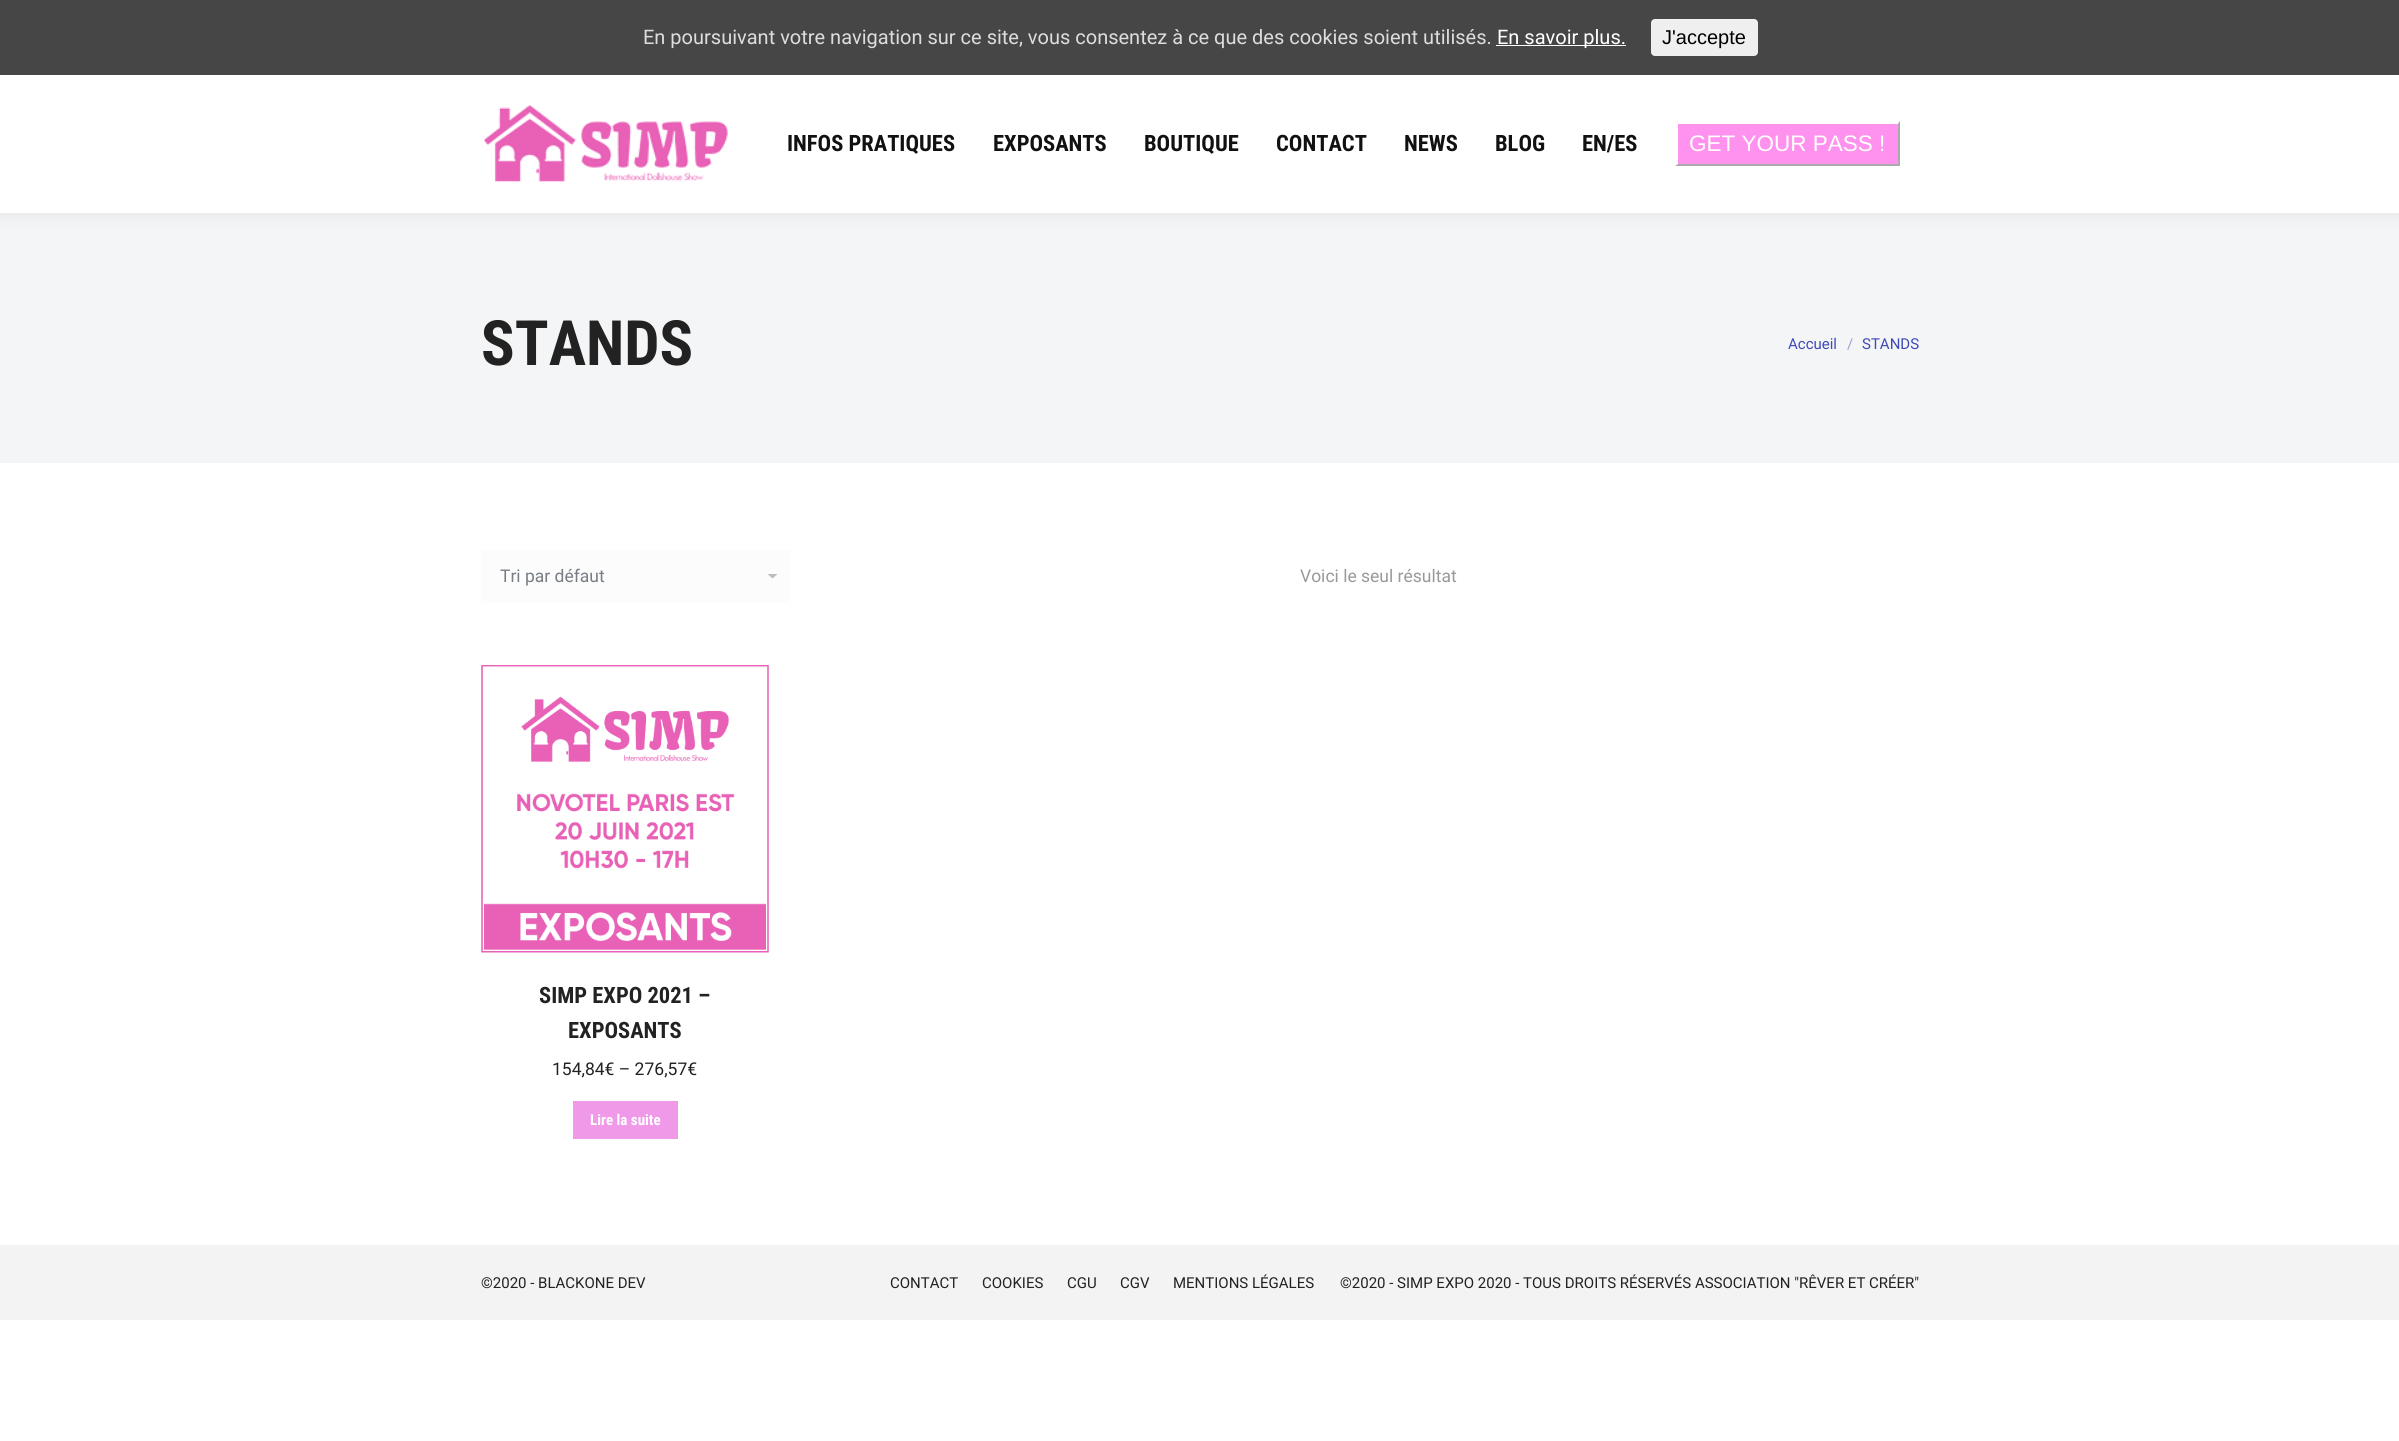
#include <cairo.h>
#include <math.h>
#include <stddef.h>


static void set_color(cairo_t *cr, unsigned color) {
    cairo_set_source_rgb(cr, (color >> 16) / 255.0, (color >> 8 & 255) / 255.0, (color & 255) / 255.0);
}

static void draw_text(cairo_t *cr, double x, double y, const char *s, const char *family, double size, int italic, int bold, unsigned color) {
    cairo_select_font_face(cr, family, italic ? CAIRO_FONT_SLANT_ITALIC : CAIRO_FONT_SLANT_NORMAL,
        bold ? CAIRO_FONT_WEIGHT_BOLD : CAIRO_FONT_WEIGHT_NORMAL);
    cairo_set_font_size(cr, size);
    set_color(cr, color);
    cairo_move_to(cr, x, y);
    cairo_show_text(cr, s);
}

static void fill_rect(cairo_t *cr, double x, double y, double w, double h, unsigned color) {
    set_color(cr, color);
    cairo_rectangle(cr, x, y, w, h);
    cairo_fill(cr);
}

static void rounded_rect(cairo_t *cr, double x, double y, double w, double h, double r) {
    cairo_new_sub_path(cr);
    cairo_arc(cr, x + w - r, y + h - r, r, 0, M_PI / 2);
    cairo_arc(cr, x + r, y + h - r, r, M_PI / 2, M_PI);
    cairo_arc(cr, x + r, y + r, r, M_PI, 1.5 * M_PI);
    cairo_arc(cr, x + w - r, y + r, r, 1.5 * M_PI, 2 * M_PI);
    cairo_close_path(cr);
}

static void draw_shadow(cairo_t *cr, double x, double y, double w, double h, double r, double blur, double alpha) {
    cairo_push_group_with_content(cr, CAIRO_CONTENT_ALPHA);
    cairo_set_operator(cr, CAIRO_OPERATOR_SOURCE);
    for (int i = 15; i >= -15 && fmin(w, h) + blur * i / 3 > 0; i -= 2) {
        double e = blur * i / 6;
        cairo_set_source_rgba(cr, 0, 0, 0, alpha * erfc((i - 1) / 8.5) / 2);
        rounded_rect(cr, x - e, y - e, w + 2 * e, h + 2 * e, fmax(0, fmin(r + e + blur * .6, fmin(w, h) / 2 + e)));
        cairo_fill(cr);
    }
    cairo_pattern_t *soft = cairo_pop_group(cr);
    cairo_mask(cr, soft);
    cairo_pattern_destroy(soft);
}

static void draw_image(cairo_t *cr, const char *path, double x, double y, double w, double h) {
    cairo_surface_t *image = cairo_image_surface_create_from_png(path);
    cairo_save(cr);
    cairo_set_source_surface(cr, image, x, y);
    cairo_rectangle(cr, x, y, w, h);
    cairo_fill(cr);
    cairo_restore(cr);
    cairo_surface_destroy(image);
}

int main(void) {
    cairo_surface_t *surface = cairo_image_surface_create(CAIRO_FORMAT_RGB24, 2399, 1441);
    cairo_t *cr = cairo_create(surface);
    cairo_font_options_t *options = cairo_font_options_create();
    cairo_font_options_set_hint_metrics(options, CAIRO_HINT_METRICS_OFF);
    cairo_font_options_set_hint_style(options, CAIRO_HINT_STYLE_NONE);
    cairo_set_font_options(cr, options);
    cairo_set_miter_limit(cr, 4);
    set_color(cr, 0xFFFFFF);
    cairo_paint(cr);
    fill_rect(cr, 0, 213, 2399, 250, 0xF4F5F6);
    set_color(cr, 0x000000);
    draw_shadow(cr, -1, 74, 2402, 140, 0, 9.5, 0.07);
    fill_rect(cr, 0, 0, 2399, 75, 0x464646);
    draw_text(cr, 643, 44, "En poursuivant votre navigation sur ce site, vous consentez à ce que des cookies soient utilisés.", "Roboto", 20, 0, 0, 0xDDDDDD);
    fill_rect(cr, 1496, 45, 130, 1, 0xFFFFFF);
    draw_text(cr, 1497, 44, "En savoir plus.", "Roboto", 20, 0, 0, 0xFFFFFF);
    set_color(cr, 0xEFEFEF);
    rounded_rect(cr, 1651, 19, 107, 37, 4);
    cairo_fill(cr);
    draw_text(cr, 1662, 44, "J'accepte", "Liberation Sans", 20, 0, 0, 0x000000);
    fill_rect(cr, 0, 75, 2399, 138, 0xFFFFFF);
    draw_image(cr, "assets/img1.png", 483, 104, 245, 78);
    draw_text(cr, 787, 151, "INFOS PRATIQUES", "Roboto Condensed", 22.5, 0, 1, 0x111111);
    draw_text(cr, 993, 151, "EXPOSANTS", "Roboto Condensed", 22.5, 0, 1, 0x111111);
    draw_text(cr, 1144, 151, "BOUTIQUE", "Roboto Condensed", 22.5, 0, 1, 0x111111);
    draw_text(cr, 1276, 151, "CONTACT", "Roboto Condensed", 22.5, 0, 1, 0x111111);
    draw_text(cr, 1404, 151, "NEWS", "Roboto Condensed", 22.5, 0, 1, 0x111111);
    draw_text(cr, 1495, 151, "BLOG", "Roboto Condensed", 22.5, 0, 1, 0x111111);
    draw_text(cr, 1582, 151, "EN/ES", "Roboto Condensed", 22.5, 0, 1, 0x111111);
    fill_rect(cr, 1675, 121, 225, 45, 0xFF92EE);
    set_color(cr, 0xFFFFFF);
    cairo_new_path(cr);
    cairo_move_to(cr, 1675, 121);
    cairo_line_to(cr, 1900, 121);
    cairo_line_to(cr, 1898, 124);
    cairo_line_to(cr, 1678, 124);
    cairo_close_path(cr);
    cairo_fill(cr);
    set_color(cr, 0xAAAAAA);
    cairo_new_path(cr);
    cairo_move_to(cr, 1900, 121);
    cairo_line_to(cr, 1900, 166);
    cairo_line_to(cr, 1898, 164);
    cairo_line_to(cr, 1898, 124);
    cairo_close_path(cr);
    cairo_fill(cr);
    cairo_new_path(cr);
    cairo_move_to(cr, 1900, 166);
    cairo_line_to(cr, 1675, 166);
    cairo_line_to(cr, 1678, 164);
    cairo_line_to(cr, 1898, 164);
    cairo_close_path(cr);
    cairo_fill(cr);
    set_color(cr, 0xFFFFFF);
    cairo_new_path(cr);
    cairo_move_to(cr, 1675, 166);
    cairo_line_to(cr, 1675, 121);
    cairo_line_to(cr, 1678, 124);
    cairo_line_to(cr, 1678, 164);
    cairo_close_path(cr);
    cairo_fill(cr);
    draw_text(cr, 1689, 151, "GET YOUR PASS !", "Liberation Sans", 22.5, 0, 0, 0xFFFFFF);
    draw_text(cr, 481, 365, "STANDS", "Roboto Condensed", 62.5, 0, 1, 0x222222);
    draw_text(cr, 1788, 349, "Accueil", "Roboto", 15, 0, 0, 0x3E49B8);
    draw_text(cr, 1847, 349, "/", "Roboto", 15, 0, 0, 0x999FD7);
    draw_text(cr, 1862, 349, "STANDS", "Roboto", 15, 0, 0, 0x3E49B8);
    fill_rect(cr, 481, 550, 309, 53, 0xFCFCFC);
    set_color(cr, 0xBABDC1);
    cairo_new_path(cr);
    cairo_move_to(cr, 767.5, 574);
    cairo_line_to(cr, 772.5, 578.5);
    cairo_line_to(cr, 777.5, 574);
    cairo_close_path(cr);
    cairo_fill(cr);
    draw_text(cr, 500, 582, "Tri par défaut", "Roboto", 17.5, 0, 0, 0x787D85);
    draw_text(cr, 1300, 582, "Voici le seul résultat", "Roboto", 17.5, 0, 0, 0x999999);
    draw_image(cr, "assets/img2.png", 481, 665, 288, 288);
    draw_text(cr, 539, 1003, "SIMP EXPO 2021 –", "Roboto Condensed", 22.5, 0, 1, 0x222222);
    draw_text(cr, 568, 1038, "EXPOSANTS", "Roboto Condensed", 22.5, 0, 1, 0x222222);
    draw_text(cr, 552, 1075, "154,84€ – 276,57€", "Roboto", 17.5, 0, 0, 0x222222);
    fill_rect(cr, 573, 1101, 105, 38, 0xF099E9);
    draw_text(cr, 590, 1125, "Lire la suite", "Roboto Condensed", 15, 0, 1, 0xFFFFFF);
    fill_rect(cr, 0, 1245, 2399, 75, 0xF3F3F3);
    draw_text(cr, 481, 1288, "©2020 - BLACKONE DEV", "Roboto", 15, 0, 0, 0x222222);
    draw_text(cr, 890, 1288, "CONTACT", "Roboto", 15, 0, 0, 0x222222);
    draw_text(cr, 982, 1288, "COOKIES", "Roboto", 15, 0, 0, 0x222222);
    draw_text(cr, 1067, 1288, "CGU", "Roboto", 15, 0, 0, 0x222222);
    draw_text(cr, 1120, 1288, "CGV", "Roboto", 15, 0, 0, 0x222222);
    draw_text(cr, 1173, 1288, "MENTIONS LÉGALES", "Roboto", 15, 0, 0, 0x222222);
    draw_text(cr, 1340, 1288, "©2020 - SIMP EXPO 2020 - TOUS DROITS RÉSERVÉS ASSOCIATION \"RÊVER ET CRÉER\"", "Roboto", 15, 0, 0, 0x222222);
    cairo_surface_write_to_png(surface, "output.png");
    cairo_font_options_destroy(options);
    cairo_destroy(cr);
    cairo_surface_destroy(surface);
    return 0;
}
